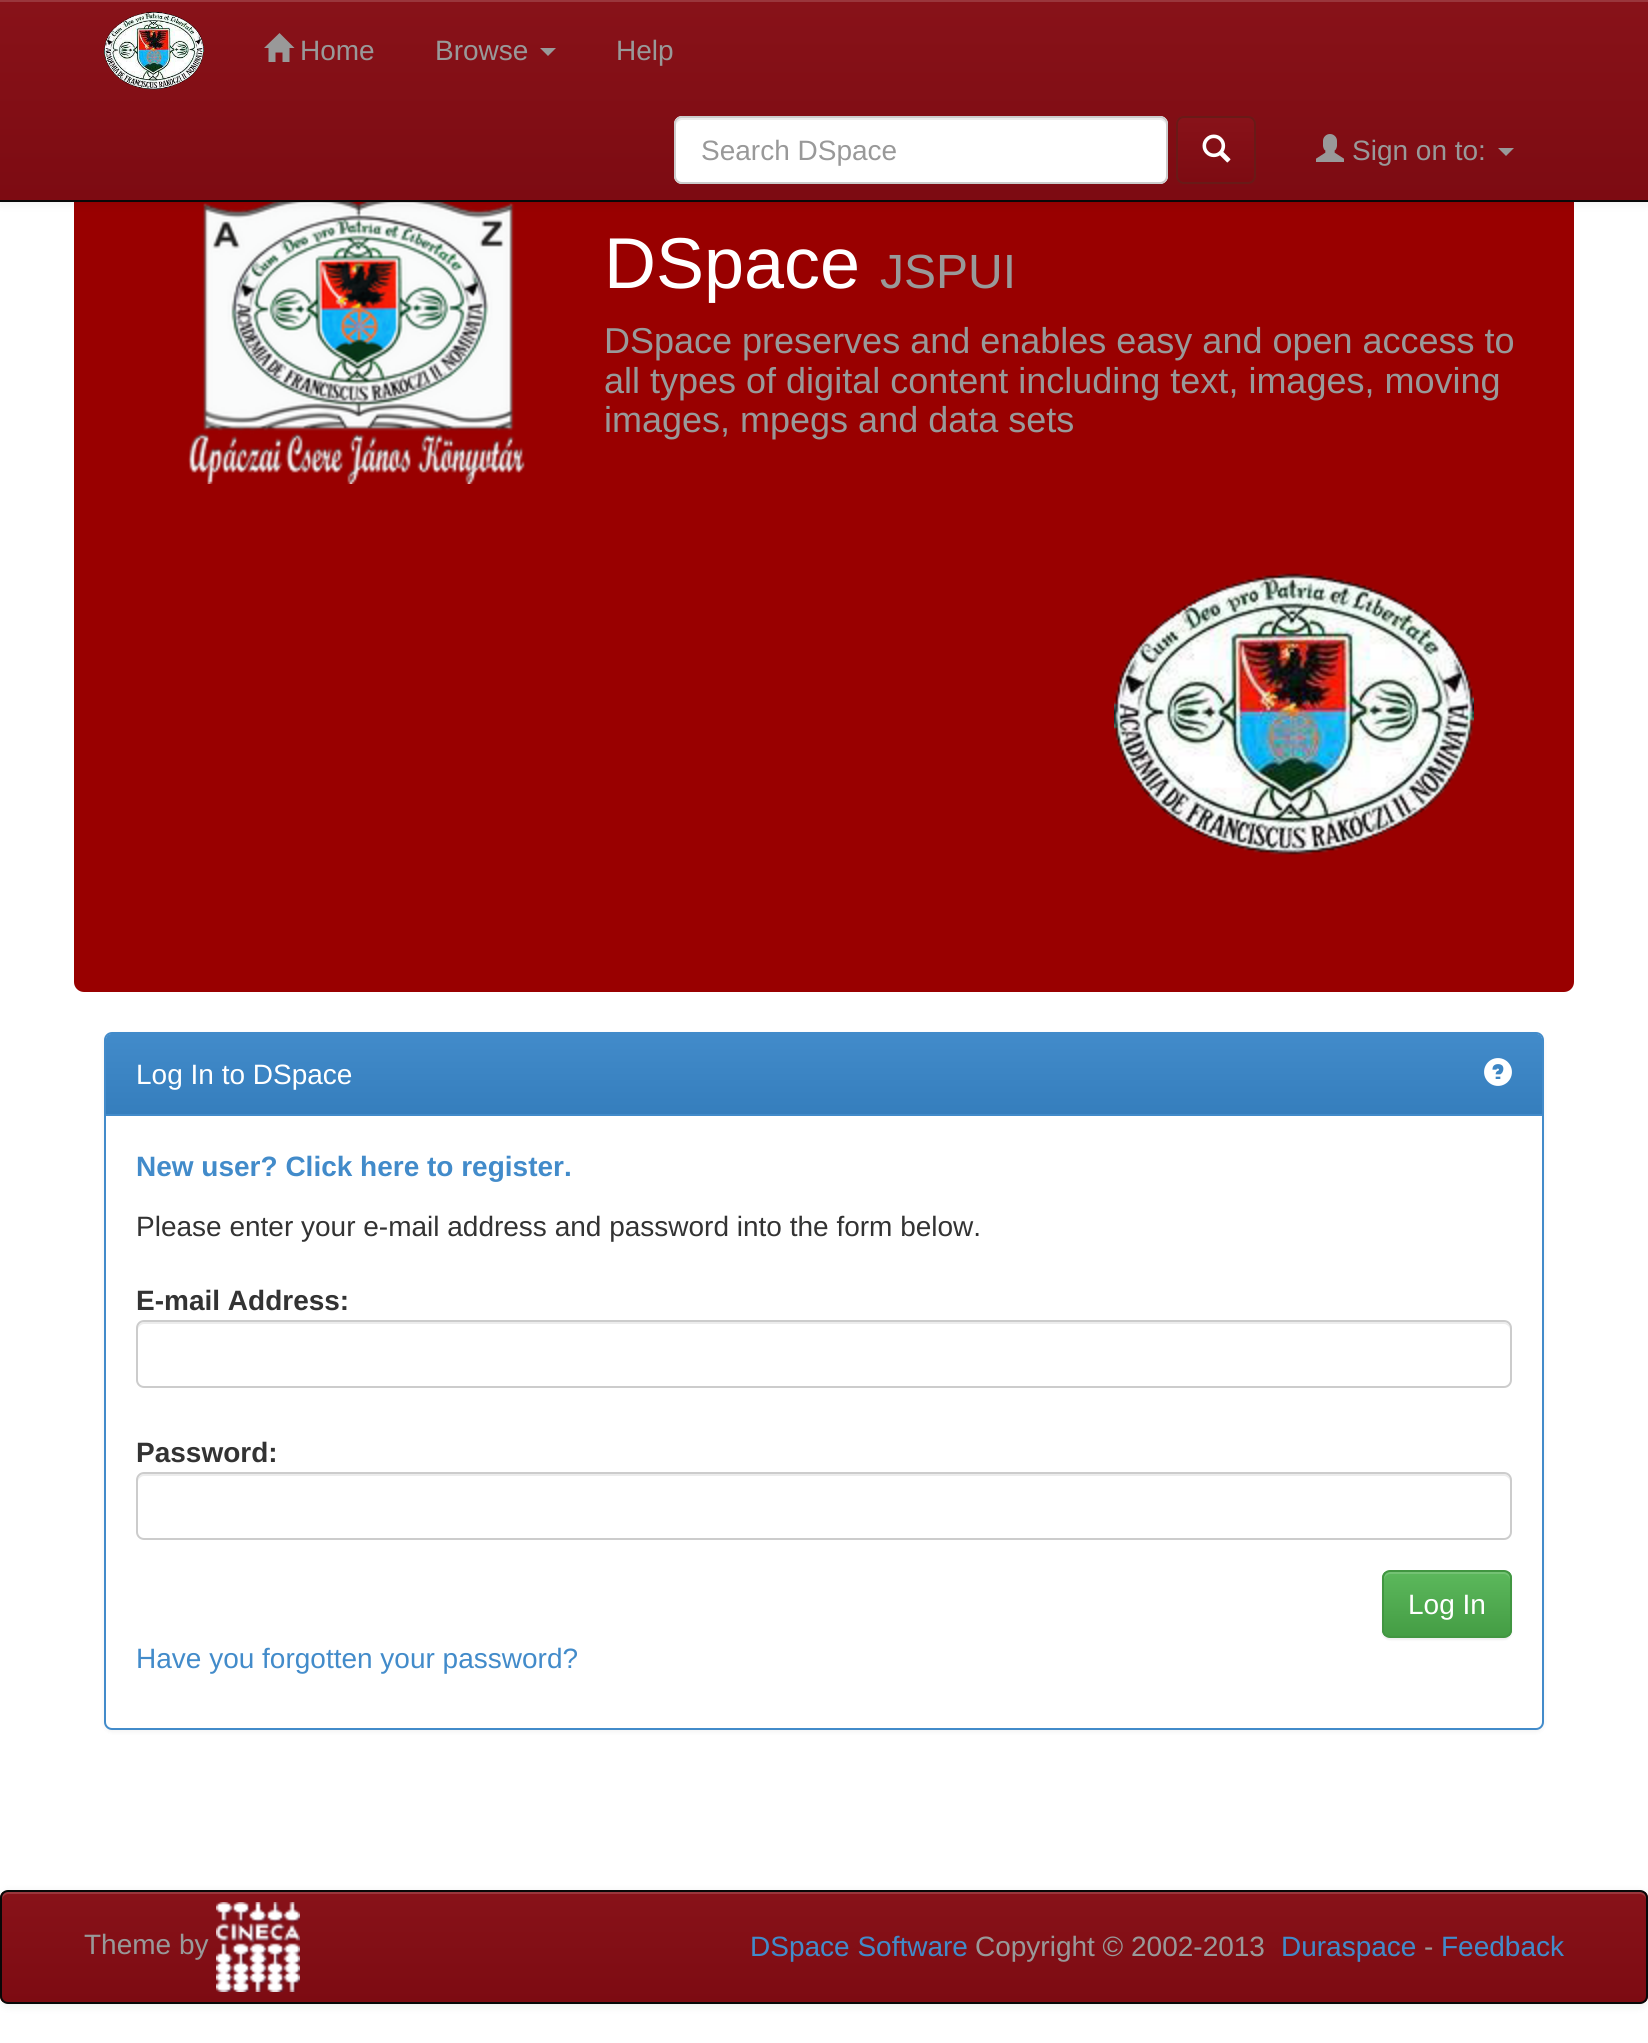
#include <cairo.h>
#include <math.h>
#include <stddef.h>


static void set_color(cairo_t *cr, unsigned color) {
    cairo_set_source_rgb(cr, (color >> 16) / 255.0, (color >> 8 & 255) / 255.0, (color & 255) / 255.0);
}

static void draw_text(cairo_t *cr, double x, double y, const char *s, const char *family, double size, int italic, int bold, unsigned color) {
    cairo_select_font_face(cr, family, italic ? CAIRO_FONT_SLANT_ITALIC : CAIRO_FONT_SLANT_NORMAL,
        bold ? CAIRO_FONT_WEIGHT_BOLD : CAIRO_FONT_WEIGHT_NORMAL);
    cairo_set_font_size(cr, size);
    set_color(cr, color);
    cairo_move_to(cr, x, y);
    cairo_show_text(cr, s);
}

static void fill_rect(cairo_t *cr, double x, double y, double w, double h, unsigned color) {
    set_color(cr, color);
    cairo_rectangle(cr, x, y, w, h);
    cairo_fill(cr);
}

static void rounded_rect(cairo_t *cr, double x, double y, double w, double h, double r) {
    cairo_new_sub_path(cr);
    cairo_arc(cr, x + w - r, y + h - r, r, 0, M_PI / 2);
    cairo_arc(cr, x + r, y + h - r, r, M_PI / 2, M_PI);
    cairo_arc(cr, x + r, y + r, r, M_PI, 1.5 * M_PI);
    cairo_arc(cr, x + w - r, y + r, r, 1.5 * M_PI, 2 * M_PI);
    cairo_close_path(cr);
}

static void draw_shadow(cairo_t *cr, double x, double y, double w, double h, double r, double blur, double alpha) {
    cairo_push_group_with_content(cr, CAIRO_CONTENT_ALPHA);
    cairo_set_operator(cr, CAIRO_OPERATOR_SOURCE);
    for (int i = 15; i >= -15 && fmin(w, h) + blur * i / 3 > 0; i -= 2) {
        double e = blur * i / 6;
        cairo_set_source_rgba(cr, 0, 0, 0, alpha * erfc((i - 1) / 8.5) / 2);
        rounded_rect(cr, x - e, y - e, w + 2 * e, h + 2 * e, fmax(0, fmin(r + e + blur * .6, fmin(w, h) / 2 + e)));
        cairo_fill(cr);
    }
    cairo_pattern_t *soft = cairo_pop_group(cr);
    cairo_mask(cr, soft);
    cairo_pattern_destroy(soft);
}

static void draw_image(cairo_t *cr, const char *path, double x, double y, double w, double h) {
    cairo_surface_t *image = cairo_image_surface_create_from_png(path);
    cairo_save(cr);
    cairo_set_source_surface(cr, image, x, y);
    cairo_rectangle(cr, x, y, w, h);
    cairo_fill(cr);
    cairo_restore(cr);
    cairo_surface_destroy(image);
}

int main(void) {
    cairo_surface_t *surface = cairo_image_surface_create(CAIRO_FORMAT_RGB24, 1648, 2043);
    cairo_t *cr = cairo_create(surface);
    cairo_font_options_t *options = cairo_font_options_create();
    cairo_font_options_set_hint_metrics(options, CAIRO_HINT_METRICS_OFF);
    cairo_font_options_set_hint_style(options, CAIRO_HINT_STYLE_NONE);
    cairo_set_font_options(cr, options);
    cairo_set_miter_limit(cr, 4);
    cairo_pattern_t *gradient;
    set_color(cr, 0xFFFFFF);
    cairo_paint(cr);
    set_color(cr, 0x990000);
    rounded_rect(cr, 74, 92, 1500, 900, 10);
    cairo_fill(cr);
    draw_image(cr, "assets/img4.png", 188, 202, 337, 282);
    set_color(cr, 0x000000);
    draw_shadow(cr, 0, 2, 1648, 202, 0, 5, 0.07);
    gradient = cairo_pattern_create_linear(824, 0, 824, 200);
    cairo_pattern_add_color_stop_rgba(gradient, 0, 0.533, 0.071, 0.098, 1);
    cairo_pattern_add_color_stop_rgba(gradient, 1, 0.49, 0.043, 0.071, 1);
    cairo_set_source(cr, gradient);
    cairo_pattern_destroy(gradient);
    cairo_rectangle(cr, 0, 2, 1648, 198);
    cairo_fill(cr);
    fill_rect(cr, 0, 0, 1648, 2, 0x9A363C);
    fill_rect(cr, 0, 200, 1648, 2, 0x080808);
    draw_image(cr, "assets/img1.png", 104, 11, 100, 79);
    set_color(cr, 0x999999);
    cairo_new_path(cr);
    cairo_move_to(cr, 294.5, 48);
    cairo_line_to(cr, 289.5, 48);
    cairo_line_to(cr, 289.5, 62);
    cairo_line_to(cr, 282.5, 62);
    cairo_line_to(cr, 282.5, 52.5);
    cairo_line_to(cr, 275.5, 52.5);
    cairo_line_to(cr, 275.5, 62);
    cairo_line_to(cr, 268.5, 62);
    cairo_line_to(cr, 268.5, 48);
    cairo_line_to(cr, 264, 48);
    cairo_line_to(cr, 279.5, 33);
    cairo_close_path(cr);
    cairo_fill(cr);
    draw_text(cr, 300, 60, "Home", "Liberation Sans", 28, 0, 0, 0x999999);
    draw_text(cr, 435, 60, "Browse", "Liberation Sans", 28, 0, 0, 0x999999);
    cairo_new_path(cr);
    cairo_move_to(cr, 540, 48);
    cairo_line_to(cr, 556, 48);
    cairo_line_to(cr, 548, 56);
    cairo_close_path(cr);
    cairo_fill(cr);
    draw_text(cr, 616, 60, "Help", "Liberation Sans", 28, 0, 0, 0x999999);
    set_color(cr, 0xFFFFFF);
    rounded_rect(cr, 674, 116, 494, 68, 8);
    cairo_fill(cr);
    set_color(cr, 0xECECEC);
    cairo_new_path(cr);
    cairo_move_to(cr, 682, 120);
    cairo_line_to(cr, 1160, 120);
    cairo_curve_to(cr, 1163, 120, 1166, 123, 1166, 126);
    cairo_curve_to(cr, 1166, 122, 1165, 118, 1160, 118);
    cairo_line_to(cr, 682, 118);
    cairo_curve_to(cr, 677, 118, 676, 122, 676, 126);
    cairo_curve_to(cr, 676, 123, 679, 120, 682, 120);
    cairo_close_path(cr);
    cairo_fill(cr);
    rounded_rect(cr, 675, 117, 492, 66, 7);
    set_color(cr, 0xCCCCCC);
    cairo_stroke(cr);
    draw_text(cr, 701, 160, "Search DSpace", "Liberation Sans", 28, 0, 0, 0x999999);
    cairo_save(cr);
    rounded_rect(cr, 1176, 116, 80, 68, 8);
    cairo_clip(cr);
    gradient = cairo_pattern_create_linear(1216, 118, 1216, 182);
    cairo_pattern_add_color_stop_rgba(gradient, 0, 0.533, 0.071, 0.098, 1);
    cairo_pattern_add_color_stop_rgba(gradient, 1, 0.49, 0.043, 0.071, 1);
    cairo_set_source(cr, gradient);
    cairo_pattern_destroy(gradient);
    cairo_rectangle(cr, 1176, 118, 80, 64);
    cairo_fill(cr);
    cairo_restore(cr);
    rounded_rect(cr, 1177, 117, 78, 66, 7);
    set_color(cr, 0x691A17);
    cairo_stroke(cr);
    draw_image(cr, "assets/img2.png", 1202, 134, 29, 29);
    draw_image(cr, "assets/img3.png", 1316, 134, 28, 28);
    draw_text(cr, 1352, 160, "Sign on to:", "Liberation Sans", 28, 0, 0, 0x999999);
    cairo_new_path(cr);
    cairo_move_to(cr, 1498, 148);
    cairo_line_to(cr, 1514, 148);
    cairo_line_to(cr, 1506, 156);
    cairo_close_path(cr);
    cairo_fill(cr);
    draw_text(cr, 604, 288, "DSpace", "Liberation Sans", 72, 0, 0, 0xFFFFFF);
    draw_text(cr, 880, 288, "JSPUI", "Liberation Sans", 48, 0, 0, 0x999999);
    draw_text(cr, 604, 353, "DSpace preserves and enables easy and open access to", "Liberation Sans", 36, 0, 0, 0x999999);
    draw_text(cr, 604, 393, "all types of digital content including text, images, moving", "Liberation Sans", 36, 0, 0, 0x999999);
    draw_text(cr, 604, 432, "images, mpegs and data sets", "Liberation Sans", 36, 0, 0, 0x999999);
    draw_image(cr, "assets/img5.png", 1114, 573, 360, 282);
    set_color(cr, 0x000000);
    draw_shadow(cr, 104, 1034, 1440, 698, 8, 2, 0.05);
    set_color(cr, 0xFFFFFF);
    rounded_rect(cr, 105, 1033, 1438, 696, 7);
    cairo_fill_preserve(cr);
    set_color(cr, 0x428BCA);
    cairo_stroke(cr);
    cairo_new_path(cr);
    cairo_move_to(cr, 112, 1034);
    cairo_line_to(cr, 1536, 1034);
    cairo_curve_to(cr, 1539.5, 1034, 1542, 1036.5, 1542, 1040);
    cairo_line_to(cr, 1542, 1116);
    cairo_line_to(cr, 106, 1116);
    cairo_line_to(cr, 106, 1040);
    cairo_curve_to(cr, 106, 1036.5, 108.5, 1034, 112, 1034);
    cairo_close_path(cr);
    cairo_fill(cr);
    gradient = cairo_pattern_create_linear(824, 1034, 824, 1114);
    cairo_pattern_add_color_stop_rgba(gradient, 0, 0.259, 0.545, 0.792, 1);
    cairo_pattern_add_color_stop_rgba(gradient, 1, 0.208, 0.494, 0.741, 1);
    cairo_set_source(cr, gradient);
    cairo_pattern_destroy(gradient);
    cairo_new_path(cr);
    cairo_move_to(cr, 112, 1034);
    cairo_line_to(cr, 1536, 1034);
    cairo_curve_to(cr, 1539.5, 1034, 1542, 1036.5, 1542, 1040);
    cairo_line_to(cr, 1542, 1114);
    cairo_line_to(cr, 106, 1114);
    cairo_line_to(cr, 106, 1040);
    cairo_curve_to(cr, 106, 1036.5, 108.5, 1034, 112, 1034);
    cairo_close_path(cr);
    cairo_fill(cr);
    draw_text(cr, 136, 1084, "Log In to DSpace", "Liberation Sans", 28, 0, 0, 0xFFFFFF);
    draw_image(cr, "assets/img6.png", 1484, 1058, 28, 28);
    draw_text(cr, 136, 1176, "New user? Click here to register.", "Liberation Sans", 28, 0, 1, 0x428BCA);
    draw_text(cr, 136, 1236, "Please enter your e-mail address and password into the form below.", "Liberation Sans", 28, 0, 0, 0x333333);
    draw_text(cr, 136, 1310, "E-mail Address:", "Liberation Sans", 28, 0, 1, 0x333333);
    set_color(cr, 0xECECEC);
    cairo_new_path(cr);
    cairo_move_to(cr, 144, 1324);
    cairo_line_to(cr, 1504, 1324);
    cairo_curve_to(cr, 1507, 1324, 1510, 1327, 1510, 1330);
    cairo_line_to(cr, 1510, 1328);
    cairo_curve_to(cr, 1510, 1325, 1507, 1322, 1504, 1322);
    cairo_line_to(cr, 144, 1322);
    cairo_curve_to(cr, 141, 1322, 138, 1325, 138, 1328);
    cairo_line_to(cr, 138, 1330);
    cairo_curve_to(cr, 138, 1327, 141, 1324, 144, 1324);
    cairo_close_path(cr);
    cairo_fill(cr);
    rounded_rect(cr, 137, 1321, 1374, 66, 7);
    set_color(cr, 0xCCCCCC);
    cairo_stroke(cr);
    draw_text(cr, 136, 1462, "Password:", "Liberation Sans", 28, 0, 1, 0x333333);
    set_color(cr, 0xECECEC);
    cairo_new_path(cr);
    cairo_move_to(cr, 144, 1476);
    cairo_line_to(cr, 1504, 1476);
    cairo_curve_to(cr, 1507, 1476, 1510, 1479, 1510, 1482);
    cairo_line_to(cr, 1510, 1480);
    cairo_curve_to(cr, 1510, 1477, 1507, 1474, 1504, 1474);
    cairo_line_to(cr, 144, 1474);
    cairo_curve_to(cr, 141, 1474, 138, 1477, 138, 1480);
    cairo_line_to(cr, 138, 1482);
    cairo_curve_to(cr, 138, 1479, 141, 1476, 144, 1476);
    cairo_close_path(cr);
    cairo_fill(cr);
    rounded_rect(cr, 137, 1473, 1374, 66, 7);
    set_color(cr, 0xCCCCCC);
    cairo_stroke(cr);
    set_color(cr, 0x000000);
    draw_shadow(cr, 1382, 1572, 130, 68, 8, 1, 0.07);
    cairo_save(cr);
    rounded_rect(cr, 1382, 1570, 130, 68, 8);
    cairo_clip(cr);
    gradient = cairo_pattern_create_linear(1447, 1572, 1447, 1636);
    cairo_pattern_add_color_stop_rgba(gradient, 0, 0.361, 0.722, 0.361, 1);
    cairo_pattern_add_color_stop_rgba(gradient, 1, 0.267, 0.616, 0.267, 1);
    cairo_set_source(cr, gradient);
    cairo_pattern_destroy(gradient);
    cairo_rectangle(cr, 1382, 1572, 130, 64);
    cairo_fill(cr);
    cairo_restore(cr);
    set_color(cr, 0x74C274);
    cairo_new_path(cr);
    cairo_move_to(cr, 1390, 1574);
    cairo_line_to(cr, 1504, 1574);
    cairo_curve_to(cr, 1507, 1574, 1510, 1577, 1510, 1580);
    cairo_line_to(cr, 1510, 1578);
    cairo_curve_to(cr, 1510, 1575, 1507, 1572, 1504, 1572);
    cairo_line_to(cr, 1390, 1572);
    cairo_curve_to(cr, 1387, 1572, 1384, 1575, 1384, 1578);
    cairo_line_to(cr, 1384, 1580);
    cairo_curve_to(cr, 1384, 1577, 1387, 1574, 1390, 1574);
    cairo_close_path(cr);
    cairo_fill(cr);
    rounded_rect(cr, 1383, 1571, 128, 66, 7);
    set_color(cr, 0x419641);
    cairo_stroke(cr);
    draw_text(cr, 1408, 1614, "Log In", "Liberation Sans", 28, 0, 0, 0xFFFFFF);
    draw_text(cr, 136, 1668, "Have you forgotten your password?", "Liberation Sans", 28, 0, 0, 0x428BCA);
    set_color(cr, 0x000000);
    draw_shadow(cr, 0, 1892, 1648, 114, 8, 5, 0.07);
    cairo_save(cr);
    rounded_rect(cr, 0, 1890, 1648, 114, 8);
    cairo_clip(cr);
    gradient = cairo_pattern_create_linear(824, 1892, 824, 2002);
    cairo_pattern_add_color_stop_rgba(gradient, 0, 0.533, 0.071, 0.098, 1);
    cairo_pattern_add_color_stop_rgba(gradient, 1, 0.49, 0.043, 0.071, 1);
    cairo_set_source(cr, gradient);
    cairo_pattern_destroy(gradient);
    cairo_rectangle(cr, 0, 1892, 1648, 110);
    cairo_fill(cr);
    cairo_restore(cr);
    set_color(cr, 0x9A363C);
    cairo_new_path(cr);
    cairo_move_to(cr, 8, 1894);
    cairo_line_to(cr, 1640, 1894);
    cairo_curve_to(cr, 1643, 1894, 1646, 1897, 1646, 1900);
    cairo_curve_to(cr, 1646, 1896, 1645, 1892, 1640, 1892);
    cairo_line_to(cr, 8, 1892);
    cairo_curve_to(cr, 3, 1892, 2, 1896, 2, 1900);
    cairo_curve_to(cr, 2, 1897, 5, 1894, 8, 1894);
    cairo_close_path(cr);
    cairo_fill(cr);
    rounded_rect(cr, 1, 1891, 1646, 112, 7);
    set_color(cr, 0x080808);
    cairo_stroke(cr);
    draw_text(cr, 84, 1954, "Theme by", "Liberation Sans", 28, 0, 0, 0x999999);
    draw_image(cr, "assets/img7.png", 216, 1902, 84, 90);
    draw_text(cr, 750, 1956, "DSpace Software", "Liberation Sans", 28, 0, 0, 0x428BCA);
    draw_text(cr, 975, 1956, "Copyright © 2002-2013", "Liberation Sans", 28, 0, 0, 0x999999);
    draw_text(cr, 1281, 1956, "Duraspace", "Liberation Sans", 28, 0, 0, 0x428BCA);
    draw_text(cr, 1424, 1956, "-", "Liberation Sans", 28, 0, 0, 0x999999);
    draw_text(cr, 1441, 1956, "Feedback", "Liberation Sans", 28, 0, 0, 0x428BCA);
    cairo_surface_write_to_png(surface, "output.png");
    cairo_font_options_destroy(options);
    cairo_destroy(cr);
    cairo_surface_destroy(surface);
    return 0;
}
